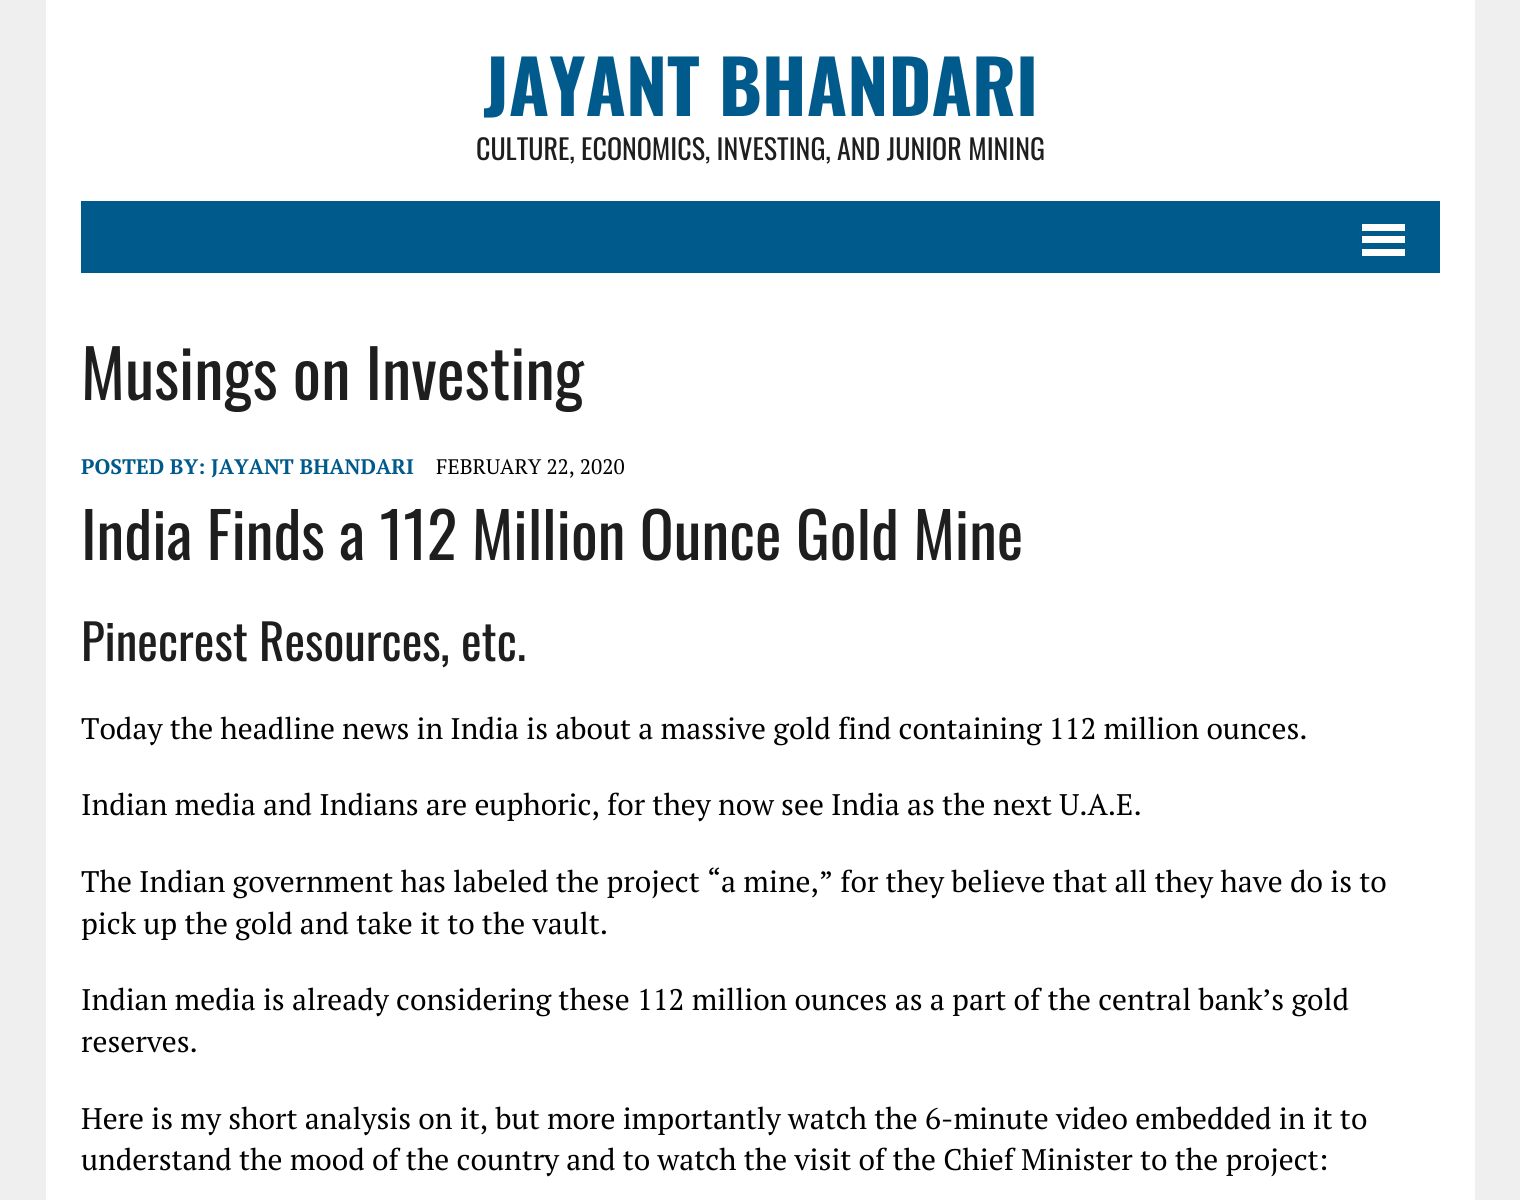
#include <cairo.h>
#include <math.h>
#include <stddef.h>


static void set_color(cairo_t *cr, unsigned color) {
    cairo_set_source_rgb(cr, (color >> 16) / 255.0, (color >> 8 & 255) / 255.0, (color & 255) / 255.0);
}

static void draw_text(cairo_t *cr, double x, double y, const char *s, const char *family, double size, int italic, int bold, unsigned color) {
    cairo_select_font_face(cr, family, italic ? CAIRO_FONT_SLANT_ITALIC : CAIRO_FONT_SLANT_NORMAL,
        bold ? CAIRO_FONT_WEIGHT_BOLD : CAIRO_FONT_WEIGHT_NORMAL);
    cairo_set_font_size(cr, size);
    set_color(cr, color);
    cairo_move_to(cr, x, y);
    cairo_show_text(cr, s);
}

static void fill_rect(cairo_t *cr, double x, double y, double w, double h, unsigned color) {
    set_color(cr, color);
    cairo_rectangle(cr, x, y, w, h);
    cairo_fill(cr);
}

int main(void) {
    cairo_surface_t *surface = cairo_image_surface_create(CAIRO_FORMAT_RGB24, 1520, 1200);
    cairo_t *cr = cairo_create(surface);
    cairo_font_options_t *options = cairo_font_options_create();
    cairo_font_options_set_hint_metrics(options, CAIRO_HINT_METRICS_OFF);
    cairo_font_options_set_hint_style(options, CAIRO_HINT_STYLE_NONE);
    cairo_set_font_options(cr, options);
    cairo_set_miter_limit(cr, 4);
    set_color(cr, 0xEFEFEF);
    cairo_paint(cr);
    fill_rect(cr, 46, 0, 1429, 1200, 0xFFFFFF);
    draw_text(cr, 483, 116, "JAYANT BHANDARI", "Oswald", 73.5, 0, 1, 0x005A8C);
    draw_text(cr, 476, 160, "CULTURE, ECONOMICS, INVESTING, AND JUNIOR MINING", "Oswald", 28, 0, 0, 0x1F1E1E);
    fill_rect(cr, 81, 201, 1359, 72, 0x005A8C);
    fill_rect(cr, 1362, 224, 43, 7, 0xFFFFFF);
    fill_rect(cr, 1362, 236, 43, 7, 0xFFFFFF);
    fill_rect(cr, 1362, 249, 43, 7, 0xFFFFFF);
    draw_text(cr, 81, 400, "Musings on Investing", "Oswald", 66.5, 0, 0, 0x1F1E1E);
    draw_text(cr, 81, 474, "POSTED BY: JAYANT BHANDARI", "PT Serif", 21, 0, 1, 0x005A8C);
    draw_text(cr, 436, 474, "FEBRUARY 22, 2020", "PT Serif", 21, 0, 0, 0x000000);
    draw_text(cr, 81, 560, "India Finds a 112 Million Ounce Gold Mine", "Oswald", 63, 0, 0, 0x1F1E1E);
    draw_text(cr, 81, 661, "Pinecrest Resources, etc.", "Oswald", 49, 0, 0, 0x1F1E1E);
    draw_text(cr, 81, 739, "Today the headline news in India is about a massive gold find containing 112 million ounces.", "PT Serif", 29.75, 0, 0, 0x000000);
    draw_text(cr, 81, 815, "Indian media and Indians are euphoric, for they now see India as the next U.A.E.", "PT Serif", 29.75, 0, 0, 0x000000);
    draw_text(cr, 81, 892, "The Indian government has labeled the project “a mine,” for they believe that all they have do is to", "PT Serif", 29.75, 0, 0, 0x000000);
    draw_text(cr, 81, 934, "pick up the gold and take it to the vault.", "PT Serif", 29.75, 0, 0, 0x000000);
    draw_text(cr, 81, 1010, "Indian media is already considering these 112 million ounces as a part of the central bank’s gold", "PT Serif", 29.75, 0, 0, 0x000000);
    draw_text(cr, 81, 1052, "reserves.", "PT Serif", 29.75, 0, 0, 0x000000);
    draw_text(cr, 81, 1129, "Here is my short analysis on it, but more importantly watch the 6-minute video embedded in it to", "PT Serif", 29.75, 0, 0, 0x000000);
    draw_text(cr, 81, 1170, "understand the mood of the country and to watch the visit of the Chief Minister to the project:", "PT Serif", 29.75, 0, 0, 0x000000);
    cairo_surface_write_to_png(surface, "output.png");
    cairo_font_options_destroy(options);
    cairo_destroy(cr);
    cairo_surface_destroy(surface);
    return 0;
}
